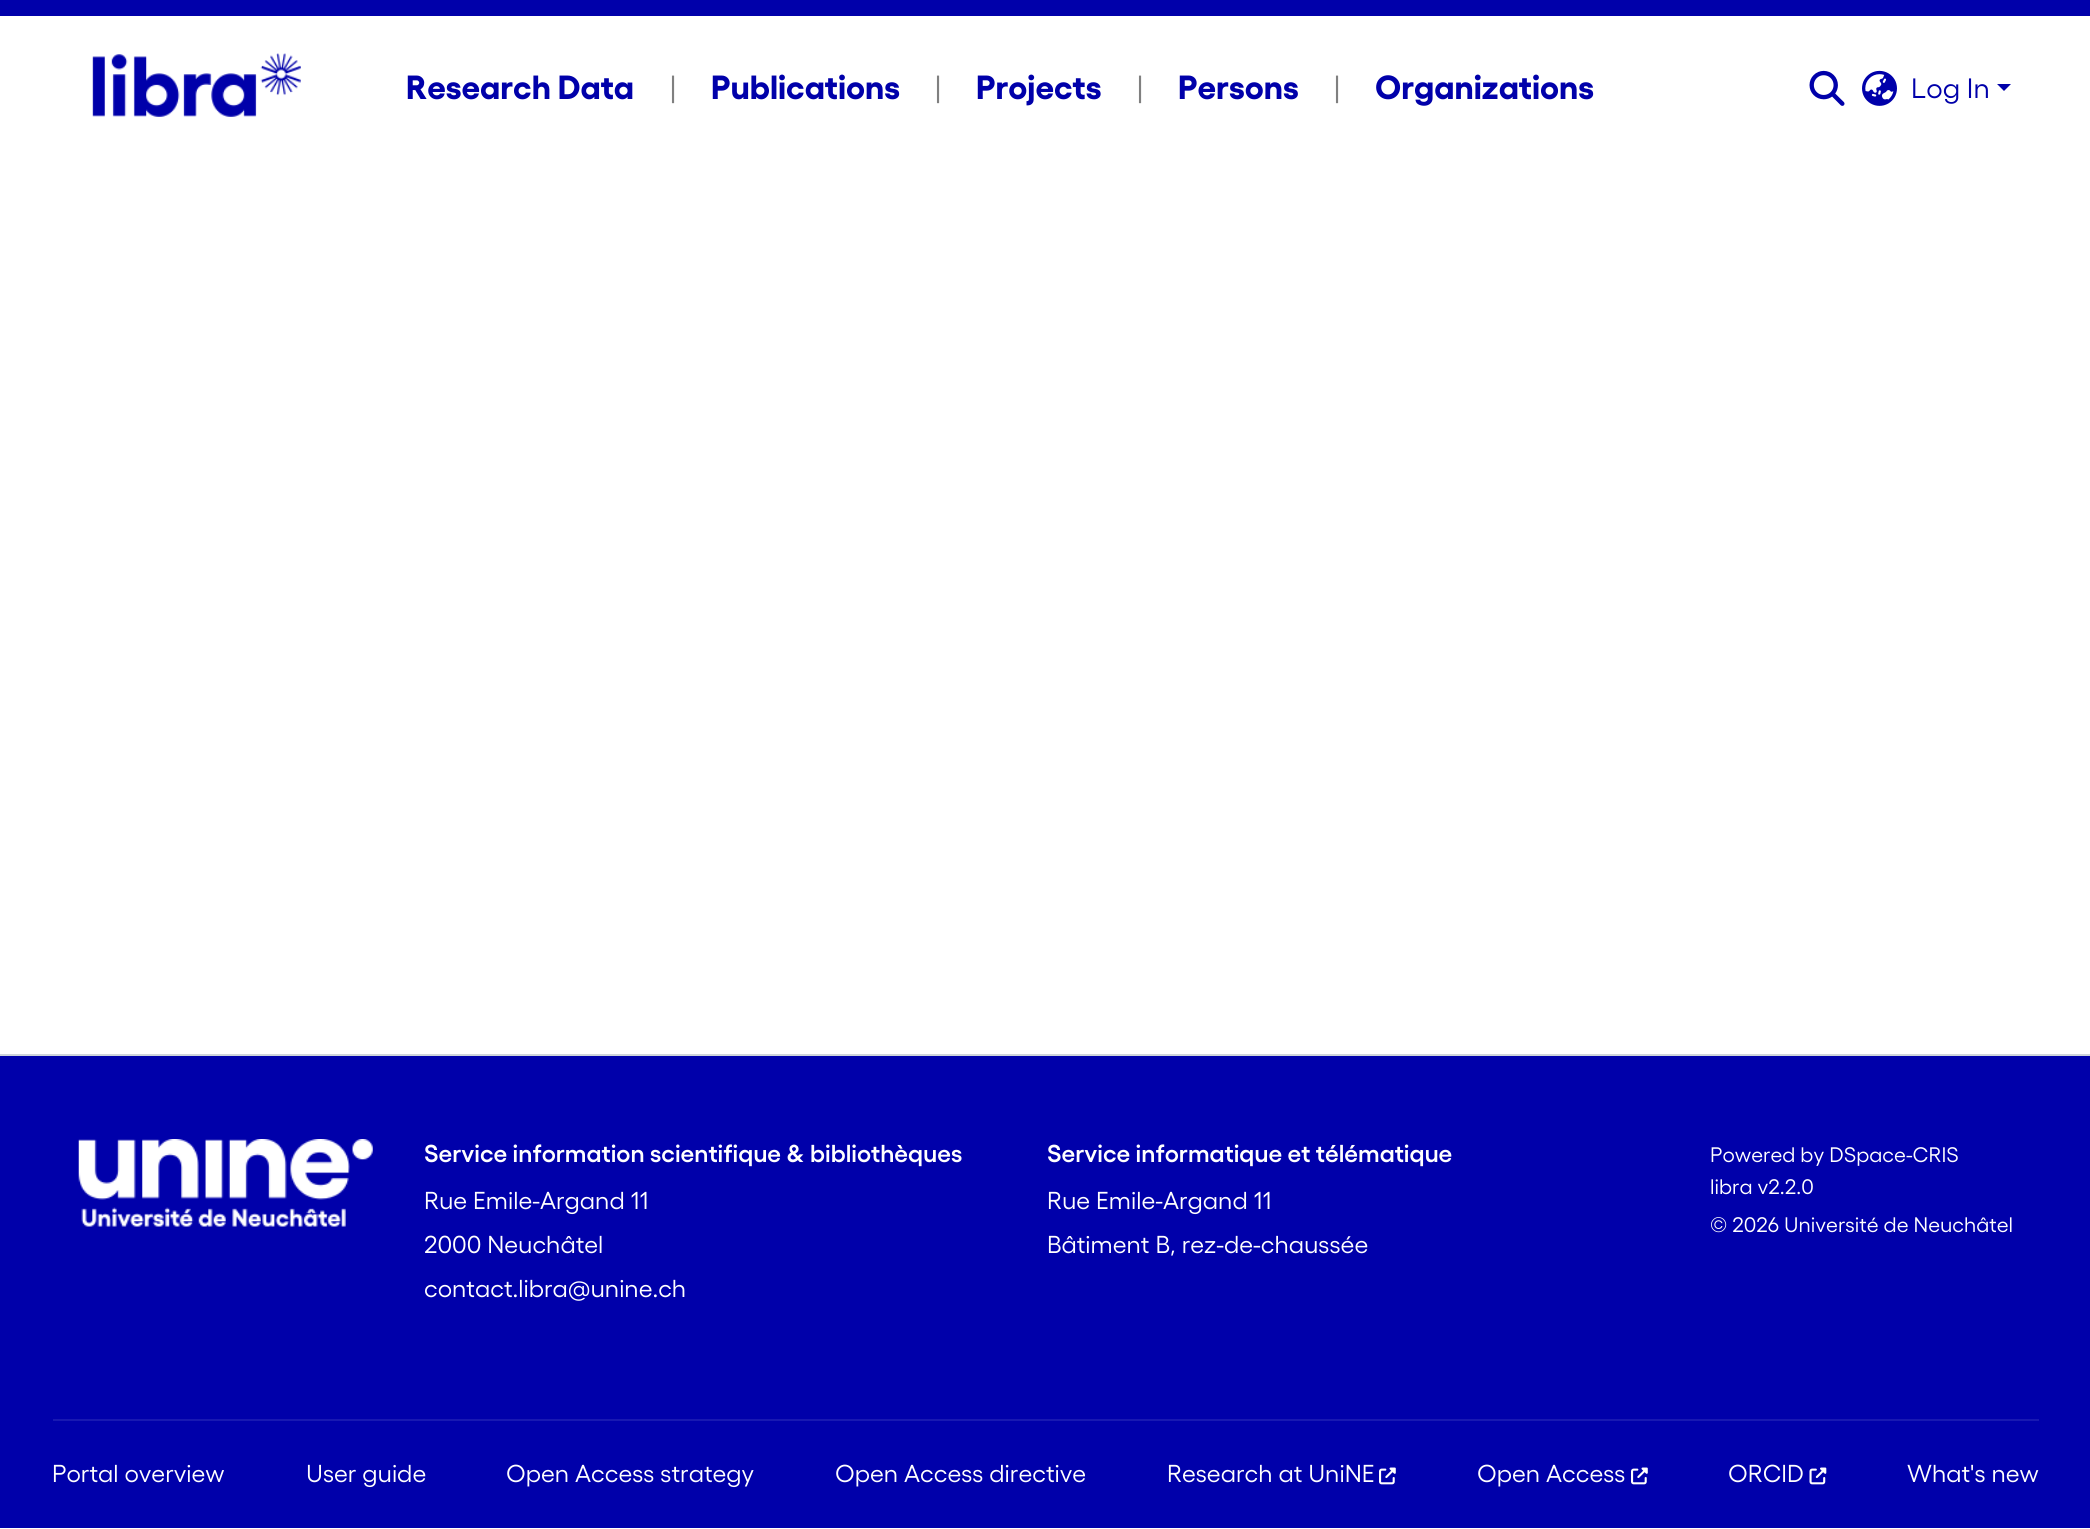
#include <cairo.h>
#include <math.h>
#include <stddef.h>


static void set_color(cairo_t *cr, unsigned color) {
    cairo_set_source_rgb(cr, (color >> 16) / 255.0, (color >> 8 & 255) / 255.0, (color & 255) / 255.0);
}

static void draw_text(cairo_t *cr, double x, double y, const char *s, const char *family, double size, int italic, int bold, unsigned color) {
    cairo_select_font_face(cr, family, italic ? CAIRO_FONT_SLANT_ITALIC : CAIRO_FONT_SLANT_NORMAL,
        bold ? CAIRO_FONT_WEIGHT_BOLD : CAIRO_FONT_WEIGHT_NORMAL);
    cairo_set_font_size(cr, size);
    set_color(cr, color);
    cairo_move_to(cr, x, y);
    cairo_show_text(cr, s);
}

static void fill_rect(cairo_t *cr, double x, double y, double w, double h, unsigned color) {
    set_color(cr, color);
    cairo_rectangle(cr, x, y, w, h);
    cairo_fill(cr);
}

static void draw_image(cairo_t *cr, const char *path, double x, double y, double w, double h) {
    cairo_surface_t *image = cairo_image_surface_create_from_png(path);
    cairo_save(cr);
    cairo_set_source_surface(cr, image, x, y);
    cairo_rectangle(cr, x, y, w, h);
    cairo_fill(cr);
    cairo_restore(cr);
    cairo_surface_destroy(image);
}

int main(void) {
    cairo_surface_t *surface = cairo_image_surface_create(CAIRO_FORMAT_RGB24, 2090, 1529);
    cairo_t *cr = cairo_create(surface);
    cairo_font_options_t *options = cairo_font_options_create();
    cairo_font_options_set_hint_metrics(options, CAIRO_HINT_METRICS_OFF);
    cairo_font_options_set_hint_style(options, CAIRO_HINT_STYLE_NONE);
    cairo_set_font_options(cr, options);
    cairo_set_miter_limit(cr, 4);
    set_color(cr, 0xFFFFFF);
    cairo_paint(cr);
    fill_rect(cr, 0, 0, 2090, 16, 0x0000AA);
    draw_image(cr, "assets/img1.png", 92, 53, 209, 64);
    draw_text(cr, 406, 99, "Research Data", "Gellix", 33.5, 0, 1, 0x0000AA);
    draw_text(cr, 670, 98, "|", "Gellix", 28, 0, 0, 0x808080);
    draw_text(cr, 711, 99, "Publications", "Gellix", 33.5, 0, 1, 0x0000AA);
    draw_text(cr, 935, 98, "|", "Gellix", 28, 0, 0, 0x808080);
    draw_text(cr, 976, 99, "Projects", "Gellix", 33.5, 0, 1, 0x0000AA);
    draw_text(cr, 1137, 98, "|", "Gellix", 28, 0, 0, 0x808080);
    draw_text(cr, 1178, 99, "Persons", "Gellix", 33.5, 0, 1, 0x0000AA);
    draw_text(cr, 1334, 98, "|", "Gellix", 28, 0, 0, 0x808080);
    draw_text(cr, 1375, 99, "Organizations", "Gellix", 33.5, 0, 1, 0x0000AA);
    draw_image(cr, "assets/img2.png", 1809, 70, 36, 36);
    draw_image(cr, "assets/img3.png", 1862, 70, 35, 36);
    draw_text(cr, 1911, 98, "Log In", "Gellix", 28, 0, 0, 0x0000AA);
    cairo_new_path(cr);
    cairo_move_to(cr, 1997, 84);
    cairo_line_to(cr, 2011, 84);
    cairo_line_to(cr, 2004, 91);
    cairo_close_path(cr);
    cairo_fill(cr);
    fill_rect(cr, 0, 1056, 2090, 472, 0x0000AA);
    fill_rect(cr, 0, 1054, 2090, 2, 0xCED4DA);
    draw_image(cr, "assets/img4.png", 78, 1139, 295, 88);
    draw_text(cr, 424, 1162, "Service information scientifique & bibliothèques", "Gellix SemiBold", 24.5, 0, 0, 0xFFFFFF);
    draw_text(cr, 424, 1209, "Rue Emile-Argand 11", "Gellix", 24.5, 0, 0, 0xFFFFFF);
    draw_text(cr, 424, 1253, "2000 Neuchâtel", "Gellix", 24.5, 0, 0, 0xFFFFFF);
    draw_text(cr, 424, 1297, "contact.libra@unine.ch", "Gellix", 24.5, 0, 0, 0xFFFFFF);
    draw_text(cr, 1047, 1162, "Service informatique et télématique", "Gellix SemiBold", 24.5, 0, 0, 0xFFFFFF);
    draw_text(cr, 1047, 1209, "Rue Emile-Argand 11", "Gellix", 24.5, 0, 0, 0xFFFFFF);
    draw_text(cr, 1047, 1253, "Bâtiment B, rez-de-chaussée", "Gellix", 24.5, 0, 0, 0xFFFFFF);
    draw_text(cr, 1710, 1162, "Powered by DSpace-CRIS", "Gellix", 21, 0, 0, 0xFFFFFF);
    draw_text(cr, 1710, 1194, "libra v2.2.0", "Gellix", 21, 0, 0, 0xFFFFFF);
    draw_text(cr, 1710, 1232, "© 2026 Université de Neuchâtel", "Gellix", 21, 0, 0, 0xFFFFFF);
    fill_rect(cr, 53, 1419, 1986, 2, 0x1818B2);
    draw_text(cr, 52, 1482, "Portal overview", "Gellix", 24.5, 0, 0, 0xFFFFFF);
    draw_text(cr, 306, 1482, "User guide", "Gellix", 24.5, 0, 0, 0xFFFFFF);
    draw_text(cr, 506, 1482, "Open Access strategy", "Gellix", 24.5, 0, 0, 0xFFFFFF);
    draw_text(cr, 835, 1482, "Open Access directive", "Gellix", 24.5, 0, 0, 0xFFFFFF);
    draw_text(cr, 1167, 1482, "Research at UniNE", "Gellix", 24.5, 0, 0, 0xFFFFFF);
    draw_image(cr, "assets/img5.png", 1379, 1467, 17, 18);
    draw_text(cr, 1477, 1482, "Open Access", "Gellix", 24.5, 0, 0, 0xFFFFFF);
    draw_image(cr, "assets/img5.png", 1631, 1467, 17, 18);
    draw_text(cr, 1728, 1482, "ORCID", "Gellix", 24.5, 0, 0, 0xFFFFFF);
    draw_image(cr, "assets/img6.png", 1809, 1467, 18, 18);
    draw_text(cr, 1907, 1482, "What's new", "Gellix", 24.5, 0, 0, 0xFFFFFF);
    cairo_surface_write_to_png(surface, "output.png");
    cairo_font_options_destroy(options);
    cairo_destroy(cr);
    cairo_surface_destroy(surface);
    return 0;
}
